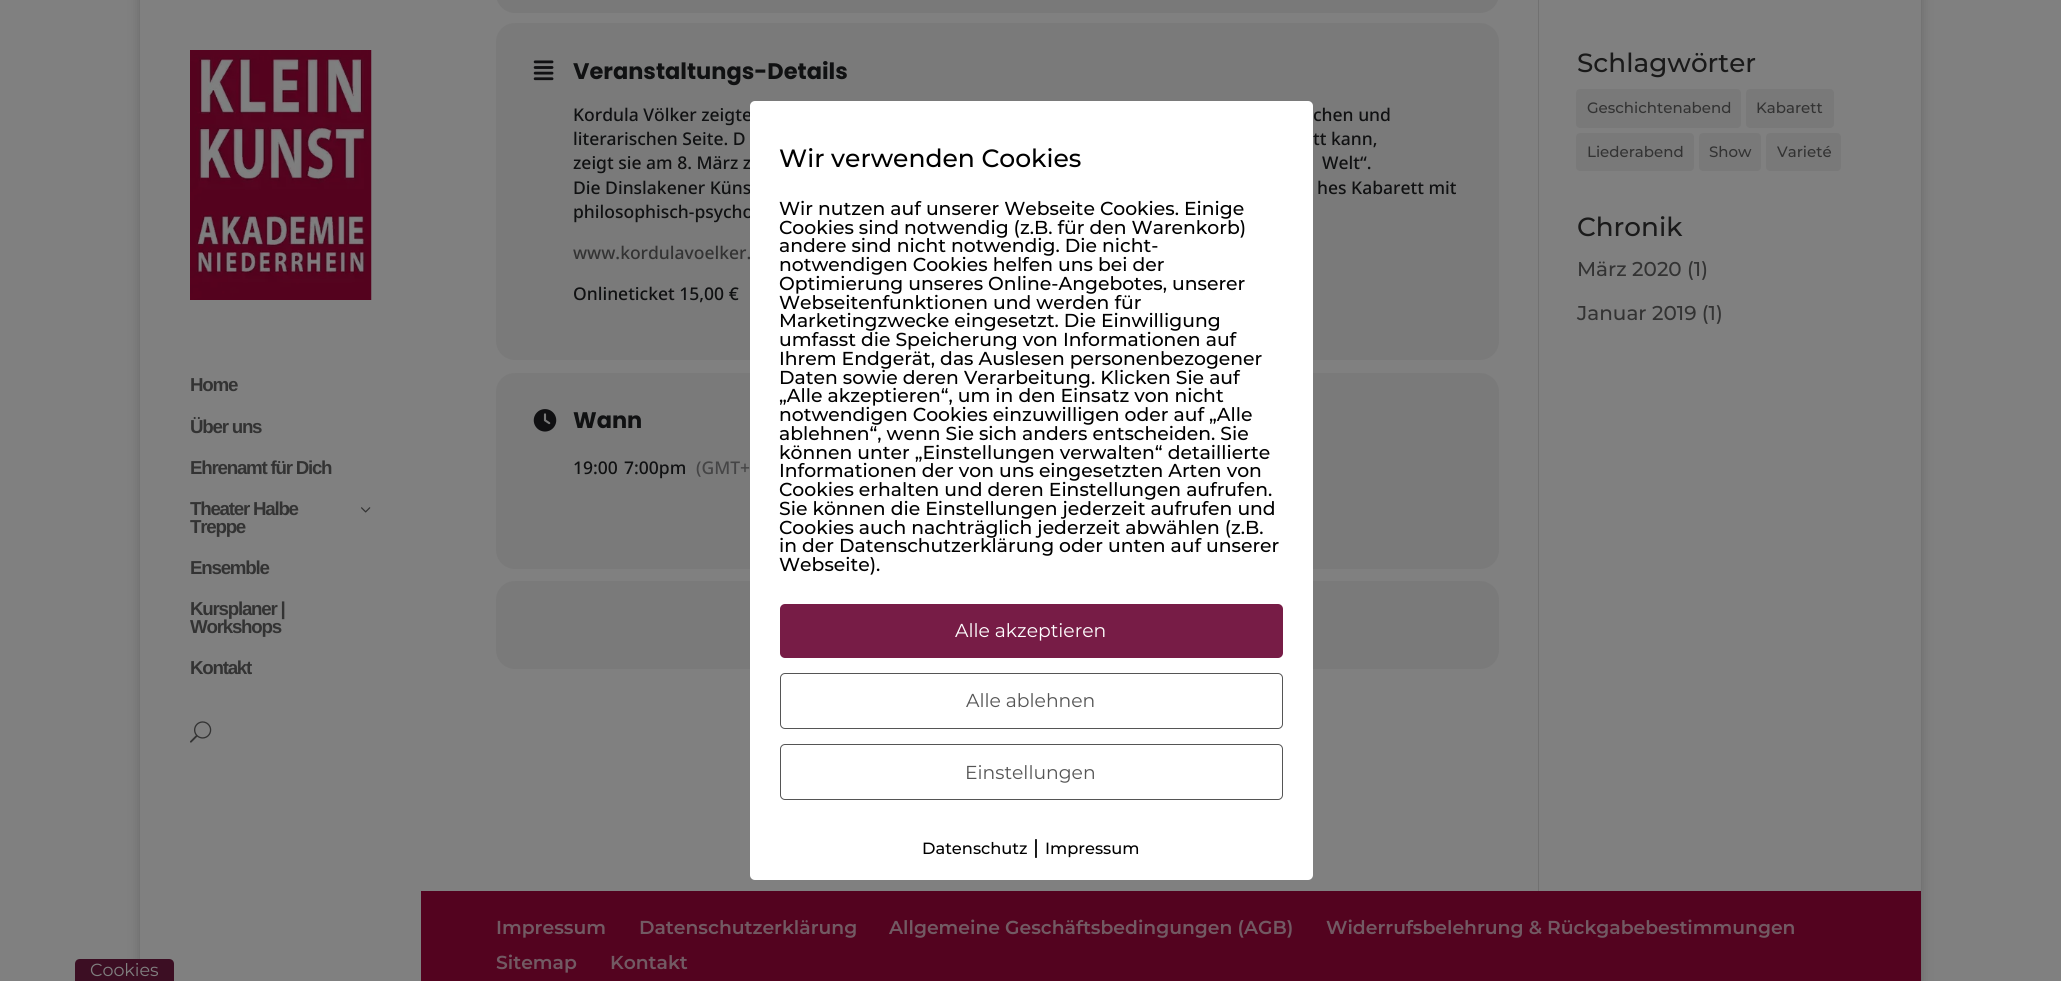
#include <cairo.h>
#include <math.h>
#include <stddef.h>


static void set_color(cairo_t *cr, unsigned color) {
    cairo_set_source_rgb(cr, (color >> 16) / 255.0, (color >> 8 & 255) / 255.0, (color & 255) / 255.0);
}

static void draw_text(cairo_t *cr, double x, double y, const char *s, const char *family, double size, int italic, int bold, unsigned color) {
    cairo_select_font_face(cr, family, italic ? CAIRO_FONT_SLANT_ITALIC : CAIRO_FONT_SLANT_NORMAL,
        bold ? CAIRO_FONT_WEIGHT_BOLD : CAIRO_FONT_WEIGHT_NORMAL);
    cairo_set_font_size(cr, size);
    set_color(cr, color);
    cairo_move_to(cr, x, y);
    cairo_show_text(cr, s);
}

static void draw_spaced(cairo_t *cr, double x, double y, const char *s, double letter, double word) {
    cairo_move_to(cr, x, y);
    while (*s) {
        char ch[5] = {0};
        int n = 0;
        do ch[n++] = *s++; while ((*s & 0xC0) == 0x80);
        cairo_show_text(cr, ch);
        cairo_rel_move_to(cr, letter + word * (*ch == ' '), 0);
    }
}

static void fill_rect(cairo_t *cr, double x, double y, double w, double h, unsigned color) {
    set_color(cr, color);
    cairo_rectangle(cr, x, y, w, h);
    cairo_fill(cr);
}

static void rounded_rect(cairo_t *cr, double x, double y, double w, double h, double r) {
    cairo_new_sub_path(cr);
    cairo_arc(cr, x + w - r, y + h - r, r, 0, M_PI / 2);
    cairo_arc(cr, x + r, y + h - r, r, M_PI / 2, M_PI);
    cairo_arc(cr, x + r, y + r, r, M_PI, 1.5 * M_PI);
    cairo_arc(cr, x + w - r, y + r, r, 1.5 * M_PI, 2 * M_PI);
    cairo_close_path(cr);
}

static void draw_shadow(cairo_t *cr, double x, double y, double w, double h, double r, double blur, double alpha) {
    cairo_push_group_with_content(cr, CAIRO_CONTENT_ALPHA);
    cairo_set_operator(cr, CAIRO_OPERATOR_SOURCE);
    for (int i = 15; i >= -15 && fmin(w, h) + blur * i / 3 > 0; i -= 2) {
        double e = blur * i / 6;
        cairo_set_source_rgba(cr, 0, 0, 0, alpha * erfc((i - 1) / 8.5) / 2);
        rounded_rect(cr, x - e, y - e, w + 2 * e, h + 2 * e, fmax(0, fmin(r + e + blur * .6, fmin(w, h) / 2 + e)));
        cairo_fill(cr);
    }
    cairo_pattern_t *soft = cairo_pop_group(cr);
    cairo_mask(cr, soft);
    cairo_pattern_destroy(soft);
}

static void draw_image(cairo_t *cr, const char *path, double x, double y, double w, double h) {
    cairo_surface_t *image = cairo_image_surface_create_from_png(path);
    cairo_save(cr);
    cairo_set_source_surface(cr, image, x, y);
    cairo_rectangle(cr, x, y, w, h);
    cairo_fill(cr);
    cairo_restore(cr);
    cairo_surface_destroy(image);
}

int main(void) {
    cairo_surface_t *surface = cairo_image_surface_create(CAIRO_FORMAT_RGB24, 2061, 981);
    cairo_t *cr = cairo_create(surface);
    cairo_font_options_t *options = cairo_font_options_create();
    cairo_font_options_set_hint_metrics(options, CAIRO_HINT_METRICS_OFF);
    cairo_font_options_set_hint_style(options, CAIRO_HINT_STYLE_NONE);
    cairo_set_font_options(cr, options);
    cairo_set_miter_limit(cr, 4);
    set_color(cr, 0x808080);
    cairo_paint(cr);
    cairo_save(cr);
    cairo_set_fill_rule(cr, CAIRO_FILL_RULE_EVEN_ODD);
    cairo_new_path(cr);
    cairo_move_to(cr, 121, 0);
    cairo_line_to(cr, 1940, 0);
    cairo_line_to(cr, 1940, 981);
    cairo_line_to(cr, 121, 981);
    cairo_close_path(cr);
    cairo_move_to(cr, 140, -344);
    cairo_line_to(cr, 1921, -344);
    cairo_line_to(cr, 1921, 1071);
    cairo_line_to(cr, 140, 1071);
    cairo_close_path(cr);
    cairo_clip(cr);
    set_color(cr, 0x000000);
    draw_shadow(cr, 140, -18, 1781, 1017, 0, 6, 0.2);
    cairo_restore(cr);
    draw_image(cr, "assets/img1.png", 190, 50, 182, 250);
    cairo_select_font_face(cr, "Liberation Sans", CAIRO_FONT_SLANT_NORMAL, CAIRO_FONT_WEIGHT_BOLD);
    cairo_set_font_size(cr, 18.75);
    set_color(cr, 0x333333);
    draw_spaced(cr, 190, 391, "Home", -1.25, 0);
    draw_spaced(cr, 190, 433, "Über uns", -1.25, 0);
    draw_spaced(cr, 190, 474, "Ehrenamt für Dich", -1.25, 0);
    draw_spaced(cr, 190, 515, "Theater Halbe", -1.25, 0);
    draw_image(cr, "assets/img2.png", 361, 507, 10, 6);
    draw_spaced(cr, 190, 533, "Treppe", -1.25, 0);
    draw_spaced(cr, 190, 574, "Ensemble", -1.25, 0);
    draw_spaced(cr, 190, 615, "Kursplaner |", -1.25, 0);
    draw_spaced(cr, 190, 633, "Workshops", -1.25, 0);
    draw_spaced(cr, 190, 674, "Kontakt", -1.25, 0);
    draw_image(cr, "assets/img3.png", 190, 721, 22, 22);
    fill_rect(cr, 1538, 0, 1, 891, 0x717171);
    set_color(cr, 0x797979);
    rounded_rect(cr, 496, -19, 1003, 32, 19);
    cairo_fill(cr);
    set_color(cr, 0x7A7A7A);
    rounded_rect(cr, 496, 23, 1003, 337, 19);
    cairo_fill(cr);
    draw_image(cr, "assets/img4.png", 533, 60, 21, 21);
    draw_text(cr, 573, 79, "Veranstaltungs-Details", "Poppins", 22.5, 0, 1, 0x101112);
    draw_text(cr, 573, 121, "Kordula Völker zeigte", "Noto Sans Medium", 17.5, 0, 0, 0x101112);
    draw_text(cr, 1313, 121, "chen und", "Noto Sans Medium", 17.5, 0, 0, 0x101112);
    draw_text(cr, 573, 145, "literarischen Seite. D", "Noto Sans Medium", 17.5, 0, 0, 0x101112);
    draw_text(cr, 1313, 145, "tt kann,", "Noto Sans Medium", 17.5, 0, 0, 0x101112);
    draw_text(cr, 573, 169, "zeigt sie am 8. März z", "Noto Sans Medium", 17.5, 0, 0, 0x101112);
    draw_text(cr, 1322, 169, "Welt“.", "Noto Sans Medium", 17.5, 0, 0, 0x101112);
    draw_text(cr, 573, 194, "Die Dinslakener Küns", "Noto Sans Medium", 17.5, 0, 0, 0x101112);
    draw_text(cr, 1317, 194, "hes Kabarett mit", "Noto Sans Medium", 17.5, 0, 0, 0x101112);
    draw_text(cr, 573, 218, "philosophisch-psycho", "Noto Sans Medium", 17.5, 0, 0, 0x101112);
    draw_text(cr, 573, 259, "www.kordulavoelker.", "Noto Sans Medium", 17.5, 0, 0, 0x333333);
    draw_text(cr, 573, 300, "Onlineticket 15,00 €", "Noto Sans Medium", 17.5, 0, 0, 0x101112);
    set_color(cr, 0x7A7A7A);
    rounded_rect(cr, 496, 373, 497, 196, 19);
    cairo_fill(cr);
    draw_image(cr, "assets/img5.png", 533, 409, 24, 23);
    draw_text(cr, 573, 428, "Wann", "Poppins", 22.5, 0, 1, 0x101112);
    draw_text(cr, 573, 474, "19:00", "Noto Sans Medium", 17.5, 0, 0, 0x101112);
    draw_text(cr, 624, 474, "7:00pm", "Noto Sans Medium", 17.5, 0, 0, 0x101112);
    draw_text(cr, 696, 474, "(GMT+", "Noto Sans Medium", 17.5, 0, 0, 0x454546);
    set_color(cr, 0x7A7A7A);
    rounded_rect(cr, 1003, 373, 496, 196, 19);
    cairo_fill(cr);
    rounded_rect(cr, 496, 581, 1003, 88, 19);
    cairo_fill(cr);
    draw_text(cr, 1577, 72, "Schlagwörter", "Montserrat Medium", 26.25, 0, 0, 0x1A1A1A);
    set_color(cr, 0x797979);
    rounded_rect(cr, 1576, 89, 165, 39, 4);
    cairo_fill(cr);
    draw_text(cr, 1587, 113, "Geschichtenabend", "Montserrat Medium", 15, 0, 0, 0x333333);
    set_color(cr, 0x797979);
    rounded_rect(cr, 1746, 89, 88, 39, 4);
    cairo_fill(cr);
    draw_text(cr, 1756, 113, "Kabarett", "Montserrat Medium", 15, 0, 0, 0x333333);
    set_color(cr, 0x797979);
    rounded_rect(cr, 1576, 133, 118, 38, 4);
    cairo_fill(cr);
    draw_text(cr, 1587, 157, "Liederabend", "Montserrat Medium", 15, 0, 0, 0x333333);
    set_color(cr, 0x797979);
    rounded_rect(cr, 1699, 133, 62, 38, 4);
    cairo_fill(cr);
    draw_text(cr, 1709, 157, "Show", "Montserrat Medium", 15, 0, 0, 0x333333);
    set_color(cr, 0x797979);
    rounded_rect(cr, 1766, 133, 75, 38, 4);
    cairo_fill(cr);
    draw_text(cr, 1777, 157, "Varieté", "Montserrat Medium", 15, 0, 0, 0x333333);
    draw_text(cr, 1577, 236, "Chronik", "Montserrat Medium", 26.25, 0, 0, 0x1A1A1A);
    draw_text(cr, 1577, 276, "März 2020 (1)", "Montserrat Medium", 20, 0, 0, 0x333333);
    draw_text(cr, 1577, 320, "Januar 2019 (1)", "Montserrat Medium", 20, 0, 0, 0x333333);
    fill_rect(cr, 421, 891, 1500, 90, 0x53031F);
    draw_text(cr, 496, 934, "Impressum", "Montserrat SemiBold", 18.75, 0, 0, 0x725A63);
    draw_text(cr, 639, 934, "Datenschutzerklärung", "Montserrat SemiBold", 18.75, 0, 0, 0x725A63);
    draw_text(cr, 889, 934, "Allgemeine Geschäftsbedingungen (AGB)", "Montserrat SemiBold", 18.75, 0, 0, 0x725A63);
    draw_text(cr, 1326, 934, "Widerrufsbelehrung & Rückgabebestimmungen", "Montserrat SemiBold", 18.75, 0, 0, 0x725A63);
    draw_text(cr, 496, 969, "Sitemap", "Montserrat SemiBold", 18.75, 0, 0, 0x725A63);
    draw_text(cr, 610, 969, "Kontakt", "Montserrat SemiBold", 18.75, 0, 0, 0x725A63);
    set_color(cr, 0xFFFFFF);
    rounded_rect(cr, 750, 101, 563, 779, 5);
    cairo_fill(cr);
    draw_text(cr, 779, 167, "Wir verwenden Cookies", "Montserrat Medium", 25, 0, 0, 0x000000);
    draw_text(cr, 779, 215, "Wir nutzen auf unserer Webseite Cookies. Einige", "Montserrat Medium", 18.75, 0, 0, 0x000000);
    draw_text(cr, 779, 234, "Cookies sind notwendig (z.B. für den Warenkorb)", "Montserrat Medium", 18.75, 0, 0, 0x000000);
    draw_text(cr, 779, 252, "andere sind nicht notwendig. Die nicht-", "Montserrat Medium", 18.75, 0, 0, 0x000000);
    draw_text(cr, 779, 271, "notwendigen Cookies helfen uns bei der", "Montserrat Medium", 18.75, 0, 0, 0x000000);
    draw_text(cr, 779, 290, "Optimierung unseres Online-Angebotes, unserer", "Montserrat Medium", 18.75, 0, 0, 0x000000);
    draw_text(cr, 779, 309, "Webseitenfunktionen und werden für", "Montserrat Medium", 18.75, 0, 0, 0x000000);
    draw_text(cr, 779, 327, "Marketingzwecke eingesetzt. Die Einwilligung", "Montserrat Medium", 18.75, 0, 0, 0x000000);
    draw_text(cr, 779, 346, "umfasst die Speicherung von Informationen auf", "Montserrat Medium", 18.75, 0, 0, 0x000000);
    draw_text(cr, 779, 365, "Ihrem Endgerät, das Auslesen personenbezogener", "Montserrat Medium", 18.75, 0, 0, 0x000000);
    draw_text(cr, 779, 384, "Daten sowie deren Verarbeitung. Klicken Sie auf", "Montserrat Medium", 18.75, 0, 0, 0x000000);
    draw_text(cr, 779, 402, "„Alle akzeptieren“, um in den Einsatz von nicht", "Montserrat Medium", 18.75, 0, 0, 0x000000);
    draw_text(cr, 779, 421, "notwendigen Cookies einzuwilligen oder auf „Alle", "Montserrat Medium", 18.75, 0, 0, 0x000000);
    draw_text(cr, 779, 440, "ablehnen“, wenn Sie sich anders entscheiden. Sie", "Montserrat Medium", 18.75, 0, 0, 0x000000);
    draw_text(cr, 779, 459, "können unter „Einstellungen verwalten“ detaillierte", "Montserrat Medium", 18.75, 0, 0, 0x000000);
    draw_text(cr, 779, 477, "Informationen der von uns eingesetzten Arten von", "Montserrat Medium", 18.75, 0, 0, 0x000000);
    draw_text(cr, 779, 496, "Cookies erhalten und deren Einstellungen aufrufen.", "Montserrat Medium", 18.75, 0, 0, 0x000000);
    draw_text(cr, 779, 515, "Sie können die Einstellungen jederzeit aufrufen und", "Montserrat Medium", 18.75, 0, 0, 0x000000);
    draw_text(cr, 779, 534, "Cookies auch nachträglich jederzeit abwählen (z.B.", "Montserrat Medium", 18.75, 0, 0, 0x000000);
    draw_text(cr, 779, 552, "in der Datenschutzerklärung oder unten auf unserer", "Montserrat Medium", 18.75, 0, 0, 0x000000);
    draw_text(cr, 779, 571, "Webseite).", "Montserrat Medium", 18.75, 0, 0, 0x000000);
    set_color(cr, 0x771C46);
    rounded_rect(cr, 780, 604, 503, 54, 5);
    cairo_fill(cr);
    draw_text(cr, 955, 637, "Alle akzeptieren", "Montserrat", 18.75, 0, 0, 0xFFFFFF);
    rounded_rect(cr, 780.5, 673.5, 502, 55, 4.5);
    set_color(cr, 0x555555);
    cairo_set_line_width(cr, 1);
    cairo_stroke(cr);
    draw_text(cr, 966, 707, "Alle ablehnen", "Montserrat", 18.75, 0, 0, 0x555555);
    rounded_rect(cr, 780.5, 744.5, 502, 55, 4.5);
    cairo_stroke(cr);
    draw_text(cr, 965, 779, "Einstellungen", "Montserrat", 18.75, 0, 0, 0x555555);
    draw_text(cr, 922, 854, "Datenschutz", "Montserrat Medium", 16.25, 0, 0, 0x000000);
    draw_text(cr, 1033, 854, "|", "Montserrat Medium", 20, 0, 0, 0x000000);
    draw_text(cr, 1045, 854, "Impressum", "Montserrat Medium", 16.25, 0, 0, 0x000000);
    set_color(cr, 0x3C0E23);
    cairo_new_path(cr);
    cairo_move_to(cr, 80, 959);
    cairo_line_to(cr, 169, 959);
    cairo_curve_to(cr, 172, 959, 174, 961, 174, 964);
    cairo_line_to(cr, 174, 981);
    cairo_line_to(cr, 75, 981);
    cairo_line_to(cr, 75, 964);
    cairo_curve_to(cr, 75, 961, 77, 959, 80, 959);
    cairo_close_path(cr);
    cairo_fill(cr);
    draw_text(cr, 90, 976, "Cookies", "Montserrat", 17.5, 0, 0, 0x808080);
    cairo_surface_write_to_png(surface, "output.png");
    cairo_font_options_destroy(options);
    cairo_destroy(cr);
    cairo_surface_destroy(surface);
    return 0;
}
